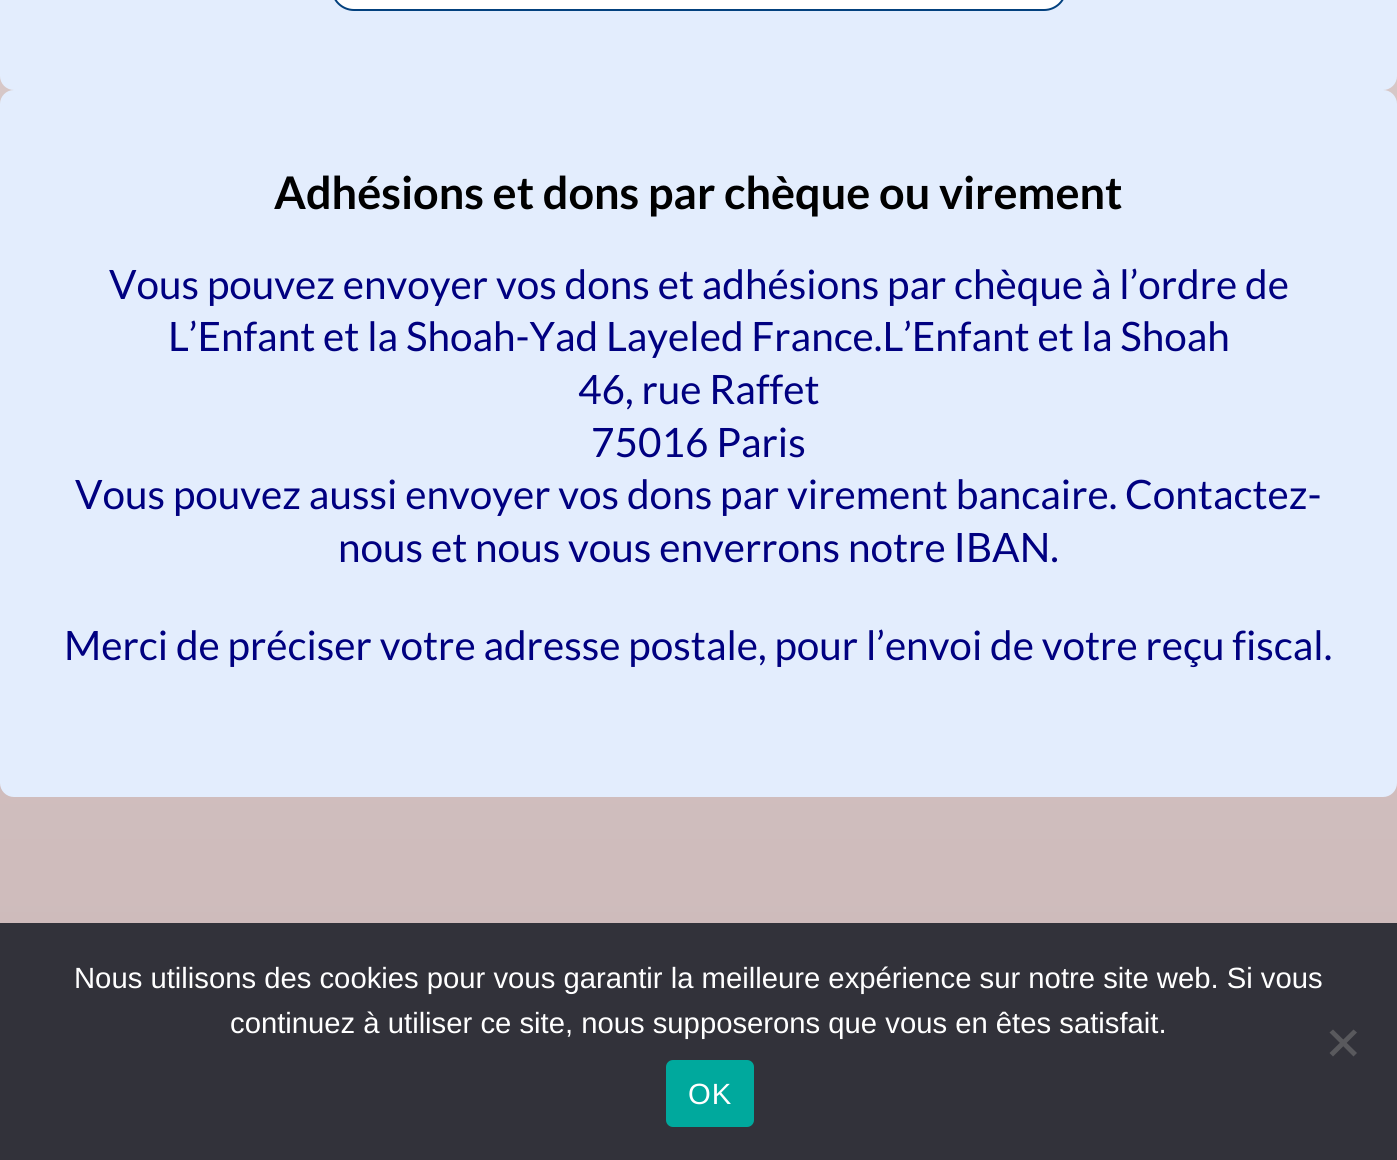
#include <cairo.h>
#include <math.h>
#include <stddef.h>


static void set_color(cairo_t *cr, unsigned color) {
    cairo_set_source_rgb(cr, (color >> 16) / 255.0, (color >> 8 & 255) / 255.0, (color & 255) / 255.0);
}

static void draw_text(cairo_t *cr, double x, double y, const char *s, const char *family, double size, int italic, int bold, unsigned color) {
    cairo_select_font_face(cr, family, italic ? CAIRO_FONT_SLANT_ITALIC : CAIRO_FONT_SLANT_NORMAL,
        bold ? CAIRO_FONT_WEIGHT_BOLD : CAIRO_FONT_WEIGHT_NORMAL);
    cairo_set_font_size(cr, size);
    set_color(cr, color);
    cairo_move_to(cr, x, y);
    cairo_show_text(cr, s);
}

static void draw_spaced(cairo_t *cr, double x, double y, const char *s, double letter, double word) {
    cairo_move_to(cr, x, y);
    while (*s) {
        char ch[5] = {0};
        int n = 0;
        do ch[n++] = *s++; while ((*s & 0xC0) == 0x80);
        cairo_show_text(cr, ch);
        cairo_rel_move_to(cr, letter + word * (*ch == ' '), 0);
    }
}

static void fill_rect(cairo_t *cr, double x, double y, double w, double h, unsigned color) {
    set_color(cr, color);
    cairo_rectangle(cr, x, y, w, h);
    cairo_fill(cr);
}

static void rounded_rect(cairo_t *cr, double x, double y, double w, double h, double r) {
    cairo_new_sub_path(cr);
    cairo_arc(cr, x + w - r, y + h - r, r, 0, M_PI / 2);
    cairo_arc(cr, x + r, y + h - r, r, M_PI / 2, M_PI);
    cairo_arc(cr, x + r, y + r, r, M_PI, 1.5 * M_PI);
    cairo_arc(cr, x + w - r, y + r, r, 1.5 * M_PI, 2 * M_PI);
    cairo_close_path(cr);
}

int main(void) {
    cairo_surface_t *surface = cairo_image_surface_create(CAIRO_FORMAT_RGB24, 1397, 1160);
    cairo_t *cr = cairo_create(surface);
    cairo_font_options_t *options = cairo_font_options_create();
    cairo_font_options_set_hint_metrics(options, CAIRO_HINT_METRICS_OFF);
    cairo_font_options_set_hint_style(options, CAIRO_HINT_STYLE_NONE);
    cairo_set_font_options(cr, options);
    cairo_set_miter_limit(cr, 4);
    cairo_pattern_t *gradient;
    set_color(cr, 0xFFFFFF);
    cairo_paint(cr);
    gradient = cairo_pattern_create_linear(699, -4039, 699, 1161);
    cairo_pattern_add_color_stop_rgba(gradient, 0, 1, 1, 1, 1);
    cairo_pattern_add_color_stop_rgba(gradient, 1, 0.8, 0.722, 0.722, 1);
    cairo_set_source(cr, gradient);
    cairo_pattern_destroy(gradient);
    cairo_rectangle(cr, 0, 76, 1397, 847);
    cairo_fill(cr);
    set_color(cr, 0xE3EDFD);
    rounded_rect(cr, 0, -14, 1397, 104, 14);
    cairo_fill(cr);
    set_color(cr, 0xFFFFFF);
    rounded_rect(cr, 332, -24, 734, 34, 22);
    cairo_fill_preserve(cr);
    set_color(cr, 0x03417E);
    cairo_stroke(cr);
    set_color(cr, 0xE3EDFD);
    rounded_rect(cr, 0, 90, 1397, 707, 14);
    cairo_fill(cr);
    draw_text(cr, 274, 209, "Adhésions et dons par chèque ou virement", "Lato", 45, 0, 1, 0x000000);
    draw_text(cr, 109, 299, "Vous pouvez envoyer vos dons et adhésions par chèque à l’ordre de", "Lato", 40.5, 0, 0, 0x000080);
    draw_text(cr, 168, 351, "L’Enfant et la Shoah-Yad Layeled France.L’Enfant et la Shoah", "Lato", 40.5, 0, 0, 0x000080);
    draw_text(cr, 578, 404, "46, rue Raffet", "Lato", 40.5, 0, 0, 0x000080);
    draw_text(cr, 591, 457, "75016 Paris", "Lato", 40.5, 0, 0, 0x000080);
    draw_text(cr, 75, 509, "Vous pouvez aussi envoyer vos dons par virement bancaire. Contactez-", "Lato", 40.5, 0, 0, 0x000080);
    draw_text(cr, 338, 562, "nous et nous vous enverrons notre IBAN.", "Lato", 40.5, 0, 0, 0x000080);
    draw_text(cr, 64, 660, "Merci de préciser votre adresse postale, pour l’envoi de votre reçu fiscal.", "Lato", 40.5, 0, 0, 0x000080);
    fill_rect(cr, 0, 923, 1397, 237, 0x32323A);
    draw_text(cr, 74, 988, "Nous utilisons des cookies pour vous garantir la meilleure expérience sur notre site web. Si vous", "Liberation Sans", 29.25, 0, 0, 0xFFFFFF);
    draw_text(cr, 230, 1033, "continuez à utiliser ce site, nous supposerons que vous en êtes satisfait.", "Liberation Sans", 29.25, 0, 0, 0xFFFFFF);
    set_color(cr, 0x59595D);
    cairo_new_path(cr);
    cairo_move_to(cr, 1353.5, 1029.5);
    cairo_line_to(cr, 1357, 1032.5);
    cairo_line_to(cr, 1333, 1056.5);
    cairo_line_to(cr, 1329.5, 1053);
    cairo_close_path(cr);
    cairo_fill(cr);
    cairo_new_path(cr);
    cairo_move_to(cr, 1329.5, 1032.5);
    cairo_line_to(cr, 1333, 1029.5);
    cairo_line_to(cr, 1357, 1053);
    cairo_line_to(cr, 1353.5, 1056.5);
    cairo_close_path(cr);
    cairo_fill(cr);
    set_color(cr, 0x00A99D);
    rounded_rect(cr, 666, 1060, 88, 67, 7);
    cairo_fill(cr);
    set_color(cr, 0xFFFFFF);
    draw_spaced(cr, 688, 1104, "OK", 1, 0);
    cairo_surface_write_to_png(surface, "output.png");
    cairo_font_options_destroy(options);
    cairo_destroy(cr);
    cairo_surface_destroy(surface);
    return 0;
}
